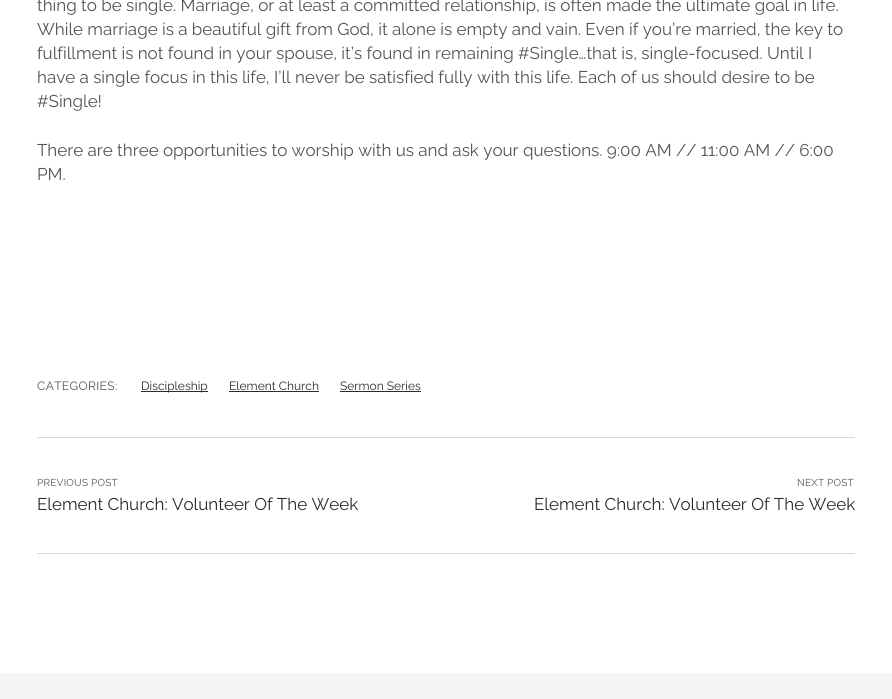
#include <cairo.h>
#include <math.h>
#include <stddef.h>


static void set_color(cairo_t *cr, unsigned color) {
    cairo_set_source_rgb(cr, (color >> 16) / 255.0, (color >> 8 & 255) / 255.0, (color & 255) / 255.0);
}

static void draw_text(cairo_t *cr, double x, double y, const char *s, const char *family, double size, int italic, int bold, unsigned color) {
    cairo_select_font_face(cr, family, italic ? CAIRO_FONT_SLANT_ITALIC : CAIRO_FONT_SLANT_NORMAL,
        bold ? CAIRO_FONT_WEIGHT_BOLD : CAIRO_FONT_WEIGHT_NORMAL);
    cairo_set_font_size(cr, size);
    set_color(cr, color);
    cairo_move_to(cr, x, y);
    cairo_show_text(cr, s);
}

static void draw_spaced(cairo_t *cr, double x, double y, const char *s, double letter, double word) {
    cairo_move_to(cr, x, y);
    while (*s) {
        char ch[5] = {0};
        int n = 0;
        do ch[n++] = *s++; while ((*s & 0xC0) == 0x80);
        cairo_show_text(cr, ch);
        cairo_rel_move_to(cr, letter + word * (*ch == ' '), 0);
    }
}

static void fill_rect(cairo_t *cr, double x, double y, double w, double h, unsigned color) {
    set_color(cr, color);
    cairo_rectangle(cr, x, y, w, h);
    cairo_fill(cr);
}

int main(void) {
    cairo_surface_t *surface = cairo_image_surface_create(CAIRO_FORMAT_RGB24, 892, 699);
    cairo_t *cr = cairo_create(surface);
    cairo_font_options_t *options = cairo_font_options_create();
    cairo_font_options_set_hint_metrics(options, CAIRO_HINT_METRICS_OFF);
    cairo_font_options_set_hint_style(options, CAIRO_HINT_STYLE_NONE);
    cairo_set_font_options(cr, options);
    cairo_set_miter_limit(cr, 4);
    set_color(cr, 0xFFFFFF);
    cairo_paint(cr);
    draw_text(cr, 37, 11, "thing to be single. Marriage, or at least a committed relationship, is often made the ultimate goal in life.", "Raleway", 17, 0, 0, 0x545454);
    draw_text(cr, 37, 35, "While marriage is a beautiful gift from God, it alone is empty and vain. Even if you’re married, the key to", "Raleway", 17, 0, 0, 0x545454);
    draw_text(cr, 37, 59, "fulfillment is not found in your spouse, it’s found in remaining #Single…that is, single-focused. Until I", "Raleway", 17, 0, 0, 0x545454);
    draw_text(cr, 37, 83, "have a single focus in this life, I’ll never be satisfied fully with this life. Each of us should desire to be", "Raleway", 17, 0, 0, 0x545454);
    draw_text(cr, 37, 107, "#Single!", "Raleway", 17, 0, 0, 0x545454);
    draw_text(cr, 37, 156, "There are three opportunities to worship with us and ask your questions. 9:00 AM // 11:00 AM // 6:00", "Raleway", 17, 0, 0, 0x545454);
    draw_text(cr, 37, 180, "PM.", "Raleway", 17, 0, 0, 0x545454);
    cairo_set_font_size(cr, 12);
    draw_spaced(cr, 37, 390, "CATEGORIES:", 0.4, 0);
    fill_rect(cr, 141, 391, 67, 1, 0x2B2B2B);
    draw_text(cr, 141, 390, "Discipleship", "Raleway", 12, 0, 0, 0x2B2B2B);
    draw_text(cr, 229, 390, "Element Church", "Raleway", 12, 0, 0, 0x2B2B2B);
    fill_rect(cr, 229, 391, 90, 1, 0x2B2B2B);
    draw_text(cr, 340, 390, "Sermon Series", "Raleway", 12, 0, 0, 0x2B2B2B);
    fill_rect(cr, 340, 391, 81, 1, 0x2B2B2B);
    fill_rect(cr, 37, 437, 818, 1, 0xD9D9D9);
    fill_rect(cr, 37, 553, 818, 1, 0xD9D9D9);
    cairo_set_font_size(cr, 10);
    set_color(cr, 0x545454);
    draw_spaced(cr, 37, 486, "PREVIOUS POST", 0.25, 0);
    draw_text(cr, 37, 510, "Element Church: Volunteer Of The Week", "Raleway", 17, 0, 0, 0x2B2B2B);
    cairo_set_font_size(cr, 10);
    set_color(cr, 0x545454);
    draw_spaced(cr, 797, 486, "NEXT POST", 0.25, 0);
    draw_text(cr, 534, 510, "Element Church: Volunteer Of The Week", "Raleway", 17, 0, 0, 0x2B2B2B);
    fill_rect(cr, 0, 675, 892, 24, 0xF5F5F5);
    fill_rect(cr, 0, 674, 892, 1, 0xEDEDED);
    cairo_surface_write_to_png(surface, "output.png");
    cairo_font_options_destroy(options);
    cairo_destroy(cr);
    cairo_surface_destroy(surface);
    return 0;
}
